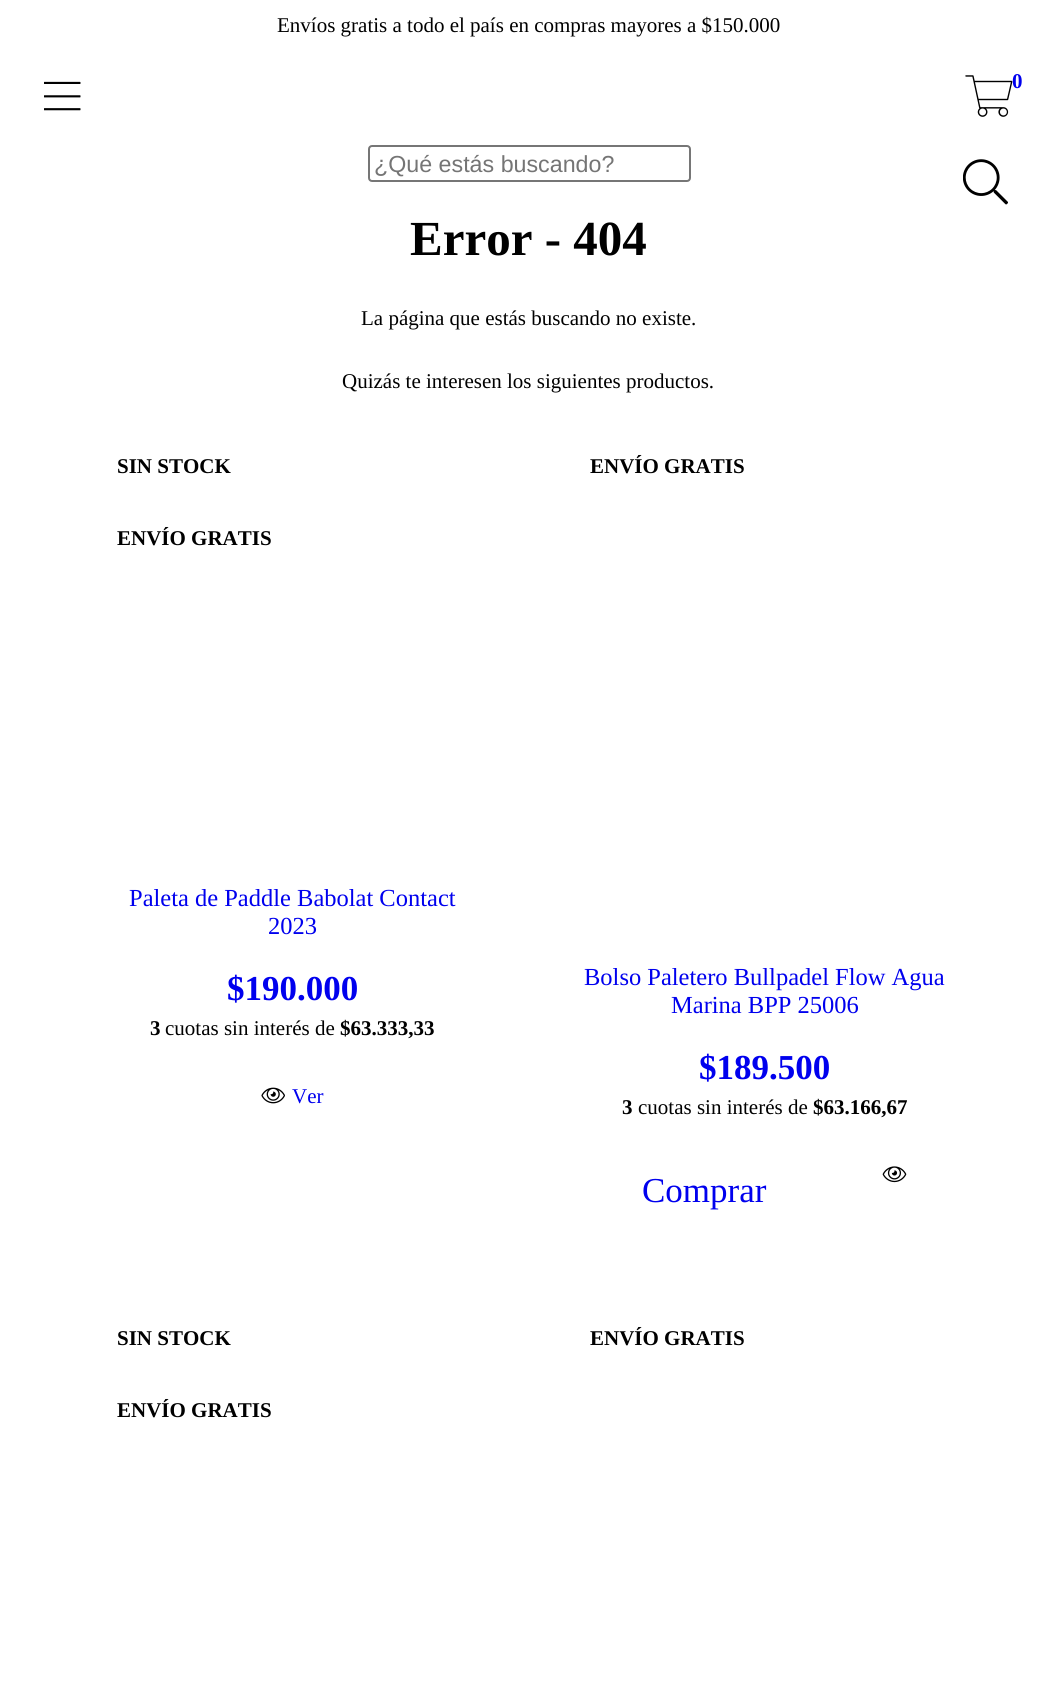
#include <cairo.h>
#include <math.h>
#include <stddef.h>


static void set_color(cairo_t *cr, unsigned color) {
    cairo_set_source_rgb(cr, (color >> 16) / 255.0, (color >> 8 & 255) / 255.0, (color & 255) / 255.0);
}

static void draw_text(cairo_t *cr, double x, double y, const char *s, const char *family, double size, int italic, int bold, unsigned color) {
    cairo_select_font_face(cr, family, italic ? CAIRO_FONT_SLANT_ITALIC : CAIRO_FONT_SLANT_NORMAL,
        bold ? CAIRO_FONT_WEIGHT_BOLD : CAIRO_FONT_WEIGHT_NORMAL);
    cairo_set_font_size(cr, size);
    set_color(cr, color);
    cairo_move_to(cr, x, y);
    cairo_show_text(cr, s);
}

static void rounded_rect(cairo_t *cr, double x, double y, double w, double h, double r) {
    cairo_new_sub_path(cr);
    cairo_arc(cr, x + w - r, y + h - r, r, 0, M_PI / 2);
    cairo_arc(cr, x + r, y + h - r, r, M_PI / 2, M_PI);
    cairo_arc(cr, x + r, y + r, r, M_PI, 1.5 * M_PI);
    cairo_arc(cr, x + w - r, y + r, r, 1.5 * M_PI, 2 * M_PI);
    cairo_close_path(cr);
}

static void draw_image(cairo_t *cr, const char *path, double x, double y, double w, double h) {
    cairo_surface_t *image = cairo_image_surface_create_from_png(path);
    cairo_save(cr);
    cairo_set_source_surface(cr, image, x, y);
    cairo_rectangle(cr, x, y, w, h);
    cairo_fill(cr);
    cairo_restore(cr);
    cairo_surface_destroy(image);
}

int main(void) {
    cairo_surface_t *surface = cairo_image_surface_create(CAIRO_FORMAT_RGB24, 1056, 1682);
    cairo_t *cr = cairo_create(surface);
    cairo_font_options_t *options = cairo_font_options_create();
    cairo_font_options_set_hint_metrics(options, CAIRO_HINT_METRICS_OFF);
    cairo_font_options_set_hint_style(options, CAIRO_HINT_STYLE_NONE);
    cairo_set_font_options(cr, options);
    cairo_set_miter_limit(cr, 4);
    set_color(cr, 0xFFFFFF);
    cairo_paint(cr);
    draw_text(cr, 277, 32, "Envíos gratis a todo el país en compras mayores a $150.000", "Liberation Serif", 21, 0, 0, 0x000000);
    draw_image(cr, "assets/img1.png", 44, 81, 37, 30);
    draw_image(cr, "assets/img2.png", 965, 75, 48, 42);
    draw_text(cr, 1012, 88, "0", "Liberation Serif", 21, 0, 1, 0x0000EE);
    rounded_rect(cr, 369, 146, 321, 35, 3);
    set_color(cr, 0x767676);
    cairo_stroke(cr);
    draw_text(cr, 374, 172, "¿Qué estás buscando?", "Liberation Sans", 23.25, 0, 0, 0x757575);
    draw_image(cr, "assets/img3.png", 963, 159, 45, 46);
    draw_text(cr, 410, 255, "Error - 404", "Liberation Serif", 49, 0, 1, 0x000000);
    draw_text(cr, 361, 325, "La página que estás buscando no existe.", "Liberation Serif", 21, 0, 0, 0x000000);
    draw_text(cr, 342, 388, "Quizás te interesen los siguientes productos.", "Liberation Serif", 21, 0, 0, 0x000000);
    draw_text(cr, 117, 473, "SIN STOCK", "Liberation Serif", 21, 0, 1, 0x000000);
    draw_text(cr, 117, 545, "ENVÍO GRATIS", "Liberation Serif", 21, 0, 1, 0x000000);
    draw_text(cr, 129, 906, "Paleta de Paddle Babolat Contact", "Liberation Serif", 24.5, 0, 0, 0x0000EE);
    draw_text(cr, 268, 934, "2023", "Liberation Serif", 24.5, 0, 0, 0x0000EE);
    draw_text(cr, 227, 1000, "$190.000", "Liberation Serif", 35, 0, 1, 0x0000EE);
    draw_text(cr, 150, 1035, "3", "Liberation Serif", 21, 0, 1, 0x000000);
    draw_text(cr, 165, 1035, "cuotas sin interés de", "Liberation Serif", 21, 0, 0, 0x000000);
    draw_text(cr, 340, 1035, "$63.333,33", "Liberation Serif", 21, 0, 1, 0x000000);
    draw_image(cr, "assets/img4.png", 261, 1087, 24, 17);
    draw_text(cr, 292, 1103, "Ver", "Liberation Serif", 21, 0, 0, 0x0000EE);
    draw_text(cr, 590, 473, "ENVÍO GRATIS", "Liberation Serif", 21, 0, 1, 0x000000);
    draw_text(cr, 584, 985, "Bolso Paletero Bullpadel Flow Agua", "Liberation Serif", 24.5, 0, 0, 0x0000EE);
    draw_text(cr, 671, 1013, "Marina BPP 25006", "Liberation Serif", 24.5, 0, 0, 0x0000EE);
    draw_text(cr, 699, 1079, "$189.500", "Liberation Serif", 35, 0, 1, 0x0000EE);
    draw_text(cr, 622, 1114, "3", "Liberation Serif", 21, 0, 1, 0x000000);
    draw_text(cr, 638, 1114, "cuotas sin interés de", "Liberation Serif", 21, 0, 0, 0x000000);
    draw_text(cr, 813, 1114, "$63.166,67", "Liberation Serif", 21, 0, 1, 0x000000);
    draw_image(cr, "assets/img5.png", 882, 1166, 25, 17);
    draw_text(cr, 642, 1202, "Comprar", "Liberation Serif", 35, 0, 0, 0x0000EE);
    draw_text(cr, 117, 1345, "SIN STOCK", "Liberation Serif", 21, 0, 1, 0x000000);
    draw_text(cr, 117, 1417, "ENVÍO GRATIS", "Liberation Serif", 21, 0, 1, 0x000000);
    draw_text(cr, 590, 1345, "ENVÍO GRATIS", "Liberation Serif", 21, 0, 1, 0x000000);
    cairo_surface_write_to_png(surface, "output.png");
    cairo_font_options_destroy(options);
    cairo_destroy(cr);
    cairo_surface_destroy(surface);
    return 0;
}
